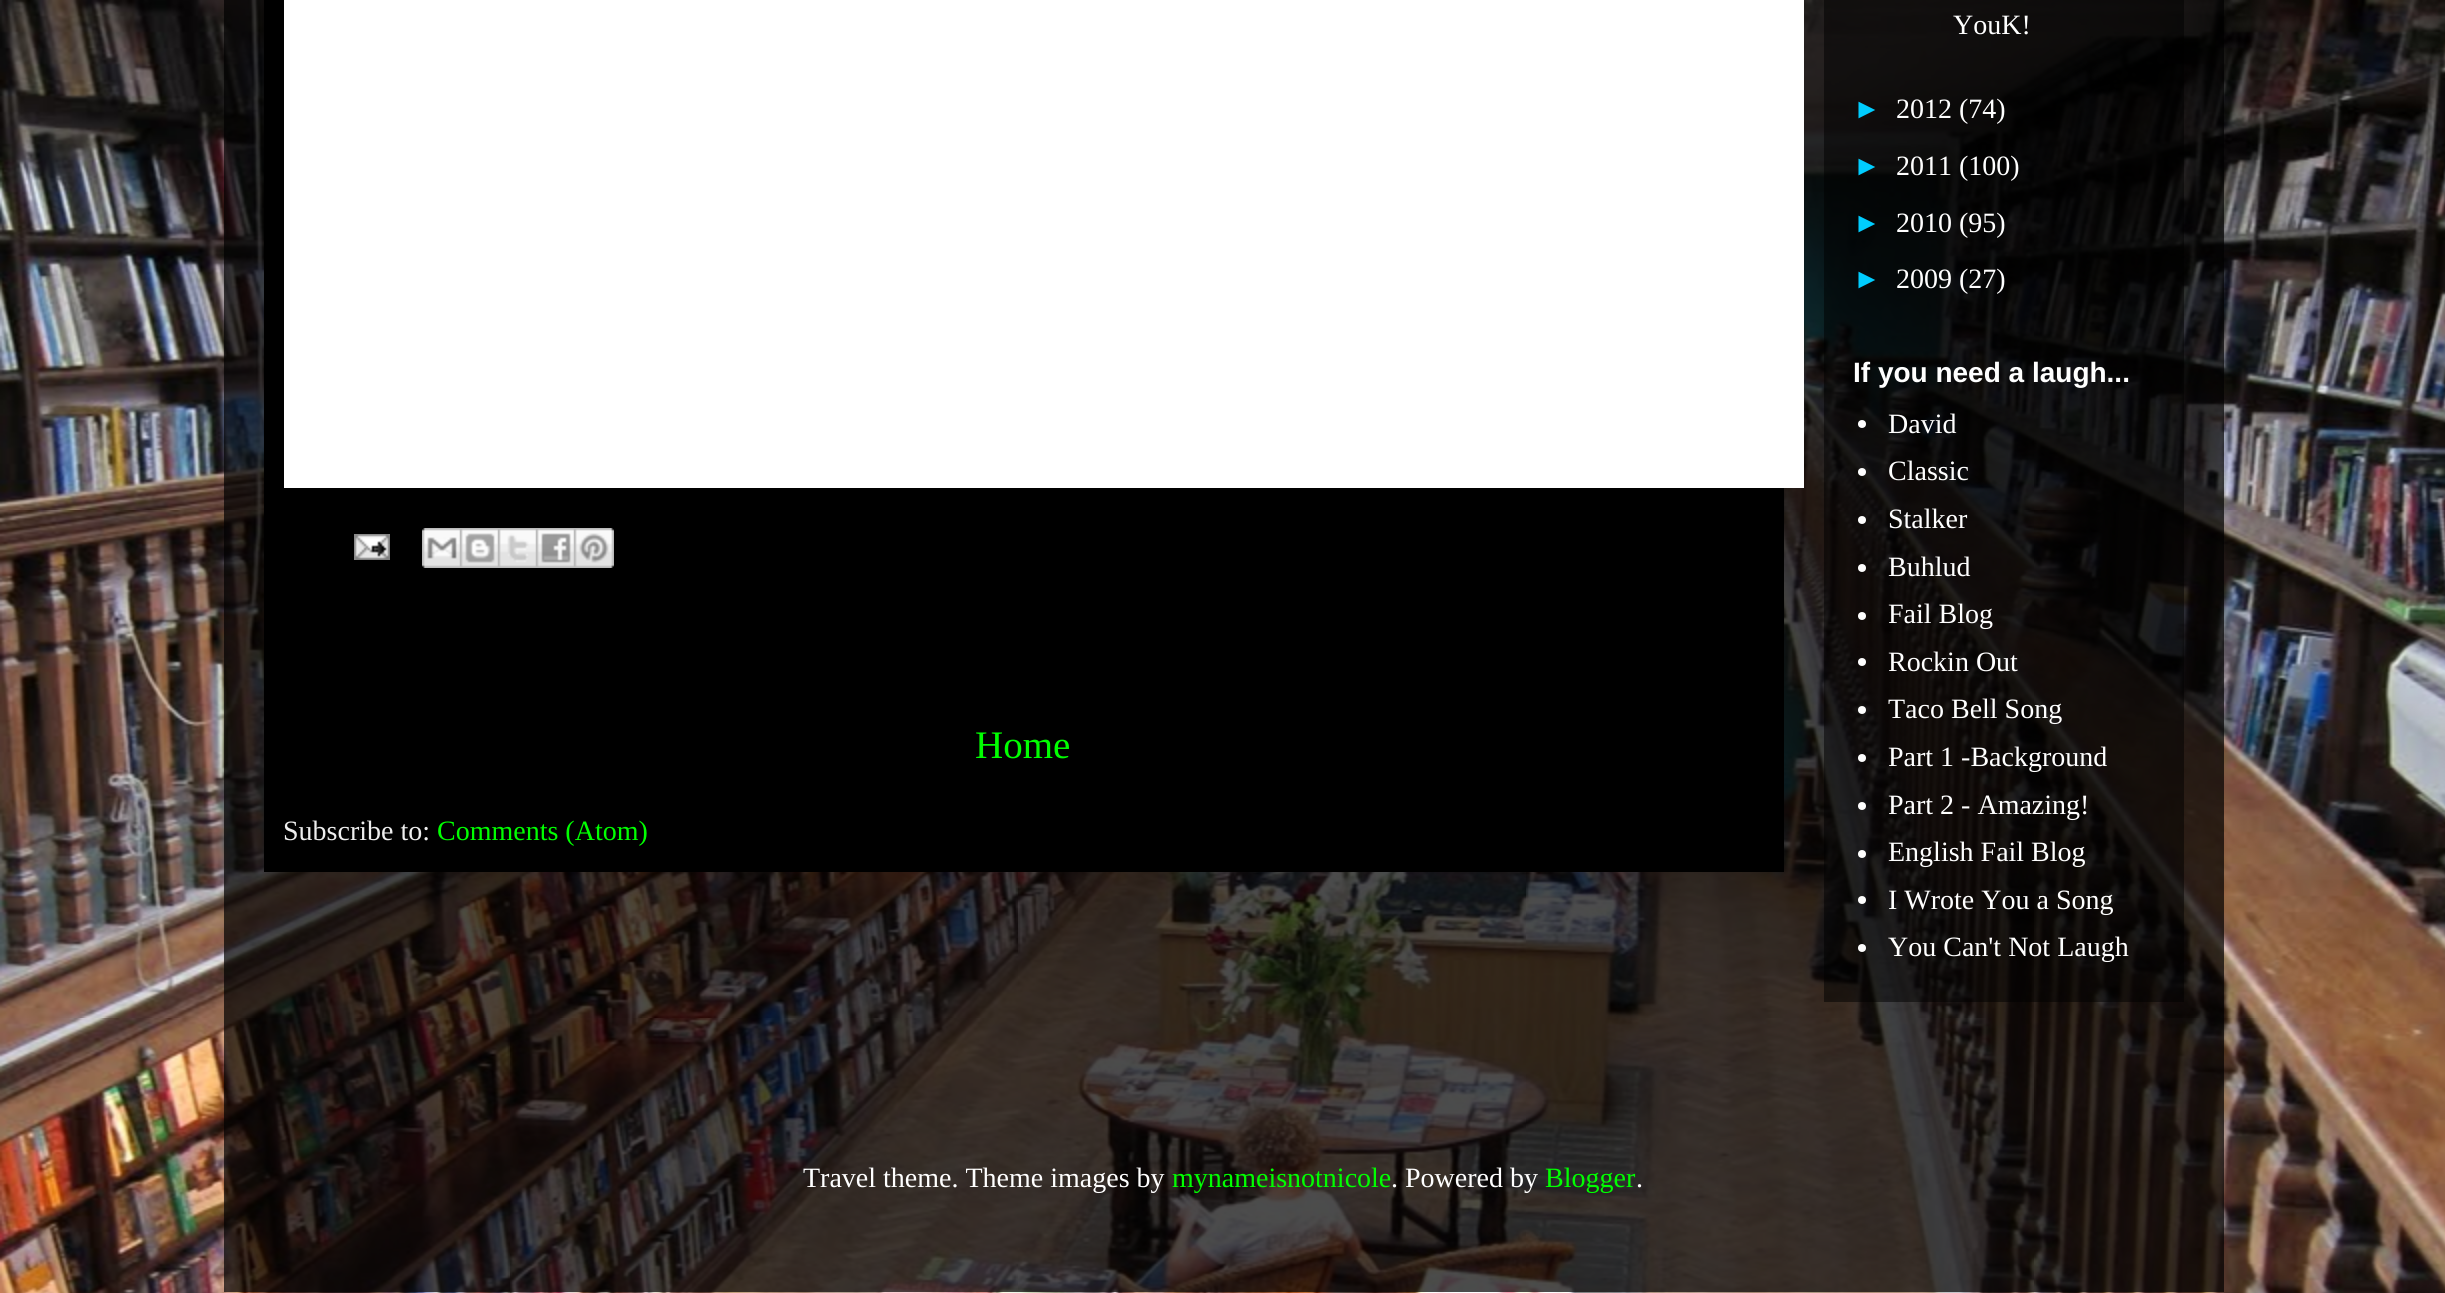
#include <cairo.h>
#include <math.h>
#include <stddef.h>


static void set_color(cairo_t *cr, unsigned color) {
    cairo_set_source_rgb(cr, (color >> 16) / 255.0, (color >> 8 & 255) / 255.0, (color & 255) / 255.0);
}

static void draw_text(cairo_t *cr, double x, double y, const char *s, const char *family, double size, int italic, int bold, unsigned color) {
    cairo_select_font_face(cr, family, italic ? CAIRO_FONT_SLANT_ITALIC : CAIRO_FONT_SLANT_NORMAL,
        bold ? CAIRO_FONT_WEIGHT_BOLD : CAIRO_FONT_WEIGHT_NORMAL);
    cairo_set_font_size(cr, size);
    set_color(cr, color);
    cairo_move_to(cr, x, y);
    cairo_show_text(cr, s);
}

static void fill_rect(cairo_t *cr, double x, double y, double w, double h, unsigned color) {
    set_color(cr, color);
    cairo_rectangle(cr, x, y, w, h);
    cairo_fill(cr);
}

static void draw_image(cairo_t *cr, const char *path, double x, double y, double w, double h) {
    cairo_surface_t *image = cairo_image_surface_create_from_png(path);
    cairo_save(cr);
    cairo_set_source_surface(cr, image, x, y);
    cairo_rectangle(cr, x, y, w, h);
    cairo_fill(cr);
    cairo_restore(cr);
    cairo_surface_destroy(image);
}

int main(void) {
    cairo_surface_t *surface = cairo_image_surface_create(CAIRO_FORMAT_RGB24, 2445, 1293);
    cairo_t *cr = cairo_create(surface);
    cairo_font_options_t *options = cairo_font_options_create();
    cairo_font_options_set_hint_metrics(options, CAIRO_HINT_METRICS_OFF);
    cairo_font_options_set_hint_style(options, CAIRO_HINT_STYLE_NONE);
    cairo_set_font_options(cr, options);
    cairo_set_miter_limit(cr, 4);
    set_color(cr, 0xFFFFFF);
    cairo_paint(cr);
    draw_image(cr, "assets/img1.png", 0, 0, 2445, 1293);
    cairo_set_source_rgba(cr, 0, 0, 0, 0.7);
    cairo_rectangle(cr, 224, 0, 2000, 1292);
    cairo_fill(cr);
    cairo_set_source_rgba(cr, 0, 0, 0, 0.5);
    cairo_rectangle(cr, 1824, 0, 360, 1002);
    cairo_fill(cr);
    fill_rect(cr, 264, 0, 1520, 872, 0x000000);
    fill_rect(cr, 284, 0, 1520, 488, 0xFFFFFF);
    draw_image(cr, "assets/img2.png", 354, 534, 36, 26);
    draw_image(cr, "assets/img3.png", 422, 528, 38, 40);
    draw_image(cr, "assets/img4.png", 460, 528, 38, 40);
    draw_image(cr, "assets/img5.png", 498, 528, 38, 40);
    draw_image(cr, "assets/img6.png", 536, 528, 38, 40);
    draw_image(cr, "assets/img7.png", 574, 528, 40, 40);
    draw_text(cr, 975, 758, "Home", "Liberation Serif", 39, 0, 0, 0x00FF00);
    draw_text(cr, 283, 840, "Subscribe to:", "Liberation Serif", 28, 0, 0, 0xEEEEEE);
    draw_text(cr, 437, 840, "Comments (Atom)", "Liberation Serif", 28, 0, 0, 0x00FF00);
    draw_text(cr, 1953, 34, "YouK!", "Liberation Serif", 28, 0, 0, 0xFFFFFF);
    draw_text(cr, 1853, 118, "►", "Liberation Sans", 28, 0, 0, 0x00CDFF);
    draw_text(cr, 1896, 118, "2012", "Liberation Serif", 28, 0, 0, 0xFFFFFF);
    draw_text(cr, 1959, 118, "(74)", "Liberation Serif", 28, 0, 0, 0xFFFFFF);
    draw_text(cr, 1853, 175, "►", "Liberation Sans", 28, 0, 0, 0x00CDFF);
    draw_text(cr, 1896, 175, "2011", "Liberation Serif", 28, 0, 0, 0xFFFFFF);
    draw_text(cr, 1959, 175, "(100)", "Liberation Serif", 28, 0, 0, 0xFFFFFF);
    draw_text(cr, 1853, 232, "►", "Liberation Sans", 28, 0, 0, 0x00CDFF);
    draw_text(cr, 1896, 232, "2010", "Liberation Serif", 28, 0, 0, 0xFFFFFF);
    draw_text(cr, 1959, 232, "(95)", "Liberation Serif", 28, 0, 0, 0xFFFFFF);
    draw_text(cr, 1853, 288, "►", "Liberation Sans", 28, 0, 0, 0x00CDFF);
    draw_text(cr, 1896, 288, "2009", "Liberation Serif", 28, 0, 0, 0xFFFFFF);
    draw_text(cr, 1959, 288, "(27)", "Liberation Serif", 28, 0, 0, 0xFFFFFF);
    draw_text(cr, 1853, 382, "If you need a laugh...", "Liberation Sans", 28, 0, 1, 0xFFFFFF);
    set_color(cr, 0xFEFEFE);
    cairo_new_path(cr);
    cairo_arc(cr, 1862, 424, 4, 0, 2 * M_PI);
    cairo_fill(cr);
    draw_text(cr, 1888, 433, "David", "Liberation Serif", 28, 0, 0, 0xFFFFFF);
    set_color(cr, 0xFEFEFE);
    cairo_new_path(cr);
    cairo_arc(cr, 1862, 472, 4, 0, 2 * M_PI);
    cairo_fill(cr);
    draw_text(cr, 1888, 480, "Classic", "Liberation Serif", 28, 0, 0, 0xFFFFFF);
    set_color(cr, 0xFEFEFE);
    cairo_new_path(cr);
    cairo_arc(cr, 1862, 520, 4, 0, 2 * M_PI);
    cairo_fill(cr);
    draw_text(cr, 1888, 528, "Stalker", "Liberation Serif", 28, 0, 0, 0xFFFFFF);
    set_color(cr, 0xFEFEFE);
    cairo_new_path(cr);
    cairo_arc(cr, 1862, 568, 4, 0, 2 * M_PI);
    cairo_fill(cr);
    draw_text(cr, 1888, 576, "Buhlud", "Liberation Serif", 28, 0, 0, 0xFFFFFF);
    set_color(cr, 0xFEFEFE);
    cairo_new_path(cr);
    cairo_arc(cr, 1862, 616, 4, 0, 2 * M_PI);
    cairo_fill(cr);
    draw_text(cr, 1888, 623, "Fail Blog", "Liberation Serif", 28, 0, 0, 0xFFFFFF);
    set_color(cr, 0xFEFEFE);
    cairo_new_path(cr);
    cairo_arc(cr, 1862, 662, 4, 0, 2 * M_PI);
    cairo_fill(cr);
    draw_text(cr, 1888, 671, "Rockin Out", "Liberation Serif", 28, 0, 0, 0xFFFFFF);
    set_color(cr, 0xFEFEFE);
    cairo_new_path(cr);
    cairo_arc(cr, 1862, 710, 4, 0, 2 * M_PI);
    cairo_fill(cr);
    draw_text(cr, 1888, 718, "Taco Bell Song", "Liberation Serif", 28, 0, 0, 0xFFFFFF);
    set_color(cr, 0xFEFEFE);
    cairo_new_path(cr);
    cairo_arc(cr, 1862, 758, 4, 0, 2 * M_PI);
    cairo_fill(cr);
    draw_text(cr, 1888, 766, "Part 1 -Background", "Liberation Serif", 28, 0, 0, 0xFFFFFF);
    set_color(cr, 0xFEFEFE);
    cairo_new_path(cr);
    cairo_arc(cr, 1862, 806, 4, 0, 2 * M_PI);
    cairo_fill(cr);
    draw_text(cr, 1888, 814, "Part 2 - Amazing!", "Liberation Serif", 28, 0, 0, 0xFFFFFF);
    set_color(cr, 0xFEFEFE);
    cairo_new_path(cr);
    cairo_arc(cr, 1862, 854, 4, 0, 2 * M_PI);
    cairo_fill(cr);
    draw_text(cr, 1888, 861, "English Fail Blog", "Liberation Serif", 28, 0, 0, 0xFFFFFF);
    set_color(cr, 0xFEFEFE);
    cairo_new_path(cr);
    cairo_arc(cr, 1862, 900, 4, 0, 2 * M_PI);
    cairo_fill(cr);
    draw_text(cr, 1888, 909, "I Wrote You a Song", "Liberation Serif", 28, 0, 0, 0xFFFFFF);
    set_color(cr, 0xFEFEFE);
    cairo_new_path(cr);
    cairo_arc(cr, 1862, 948, 4, 0, 2 * M_PI);
    cairo_fill(cr);
    draw_text(cr, 1888, 956, "You Can't Not Laugh", "Liberation Serif", 28, 0, 0, 0xFFFFFF);
    draw_text(cr, 803, 1187, "Travel theme. Theme images by", "Liberation Serif", 28, 0, 0, 0xFFFFFF);
    draw_text(cr, 1172, 1187, "mynameisnotnicole", "Liberation Serif", 28, 0, 0, 0x00FF00);
    draw_text(cr, 1391, 1187, ". Powered by", "Liberation Serif", 28, 0, 0, 0xFFFFFF);
    draw_text(cr, 1545, 1187, "Blogger", "Liberation Serif", 28, 0, 0, 0x00FF00);
    draw_text(cr, 1636, 1187, ".", "Liberation Serif", 28, 0, 0, 0xFFFFFF);
    cairo_surface_write_to_png(surface, "output.png");
    cairo_font_options_destroy(options);
    cairo_destroy(cr);
    cairo_surface_destroy(surface);
    return 0;
}
